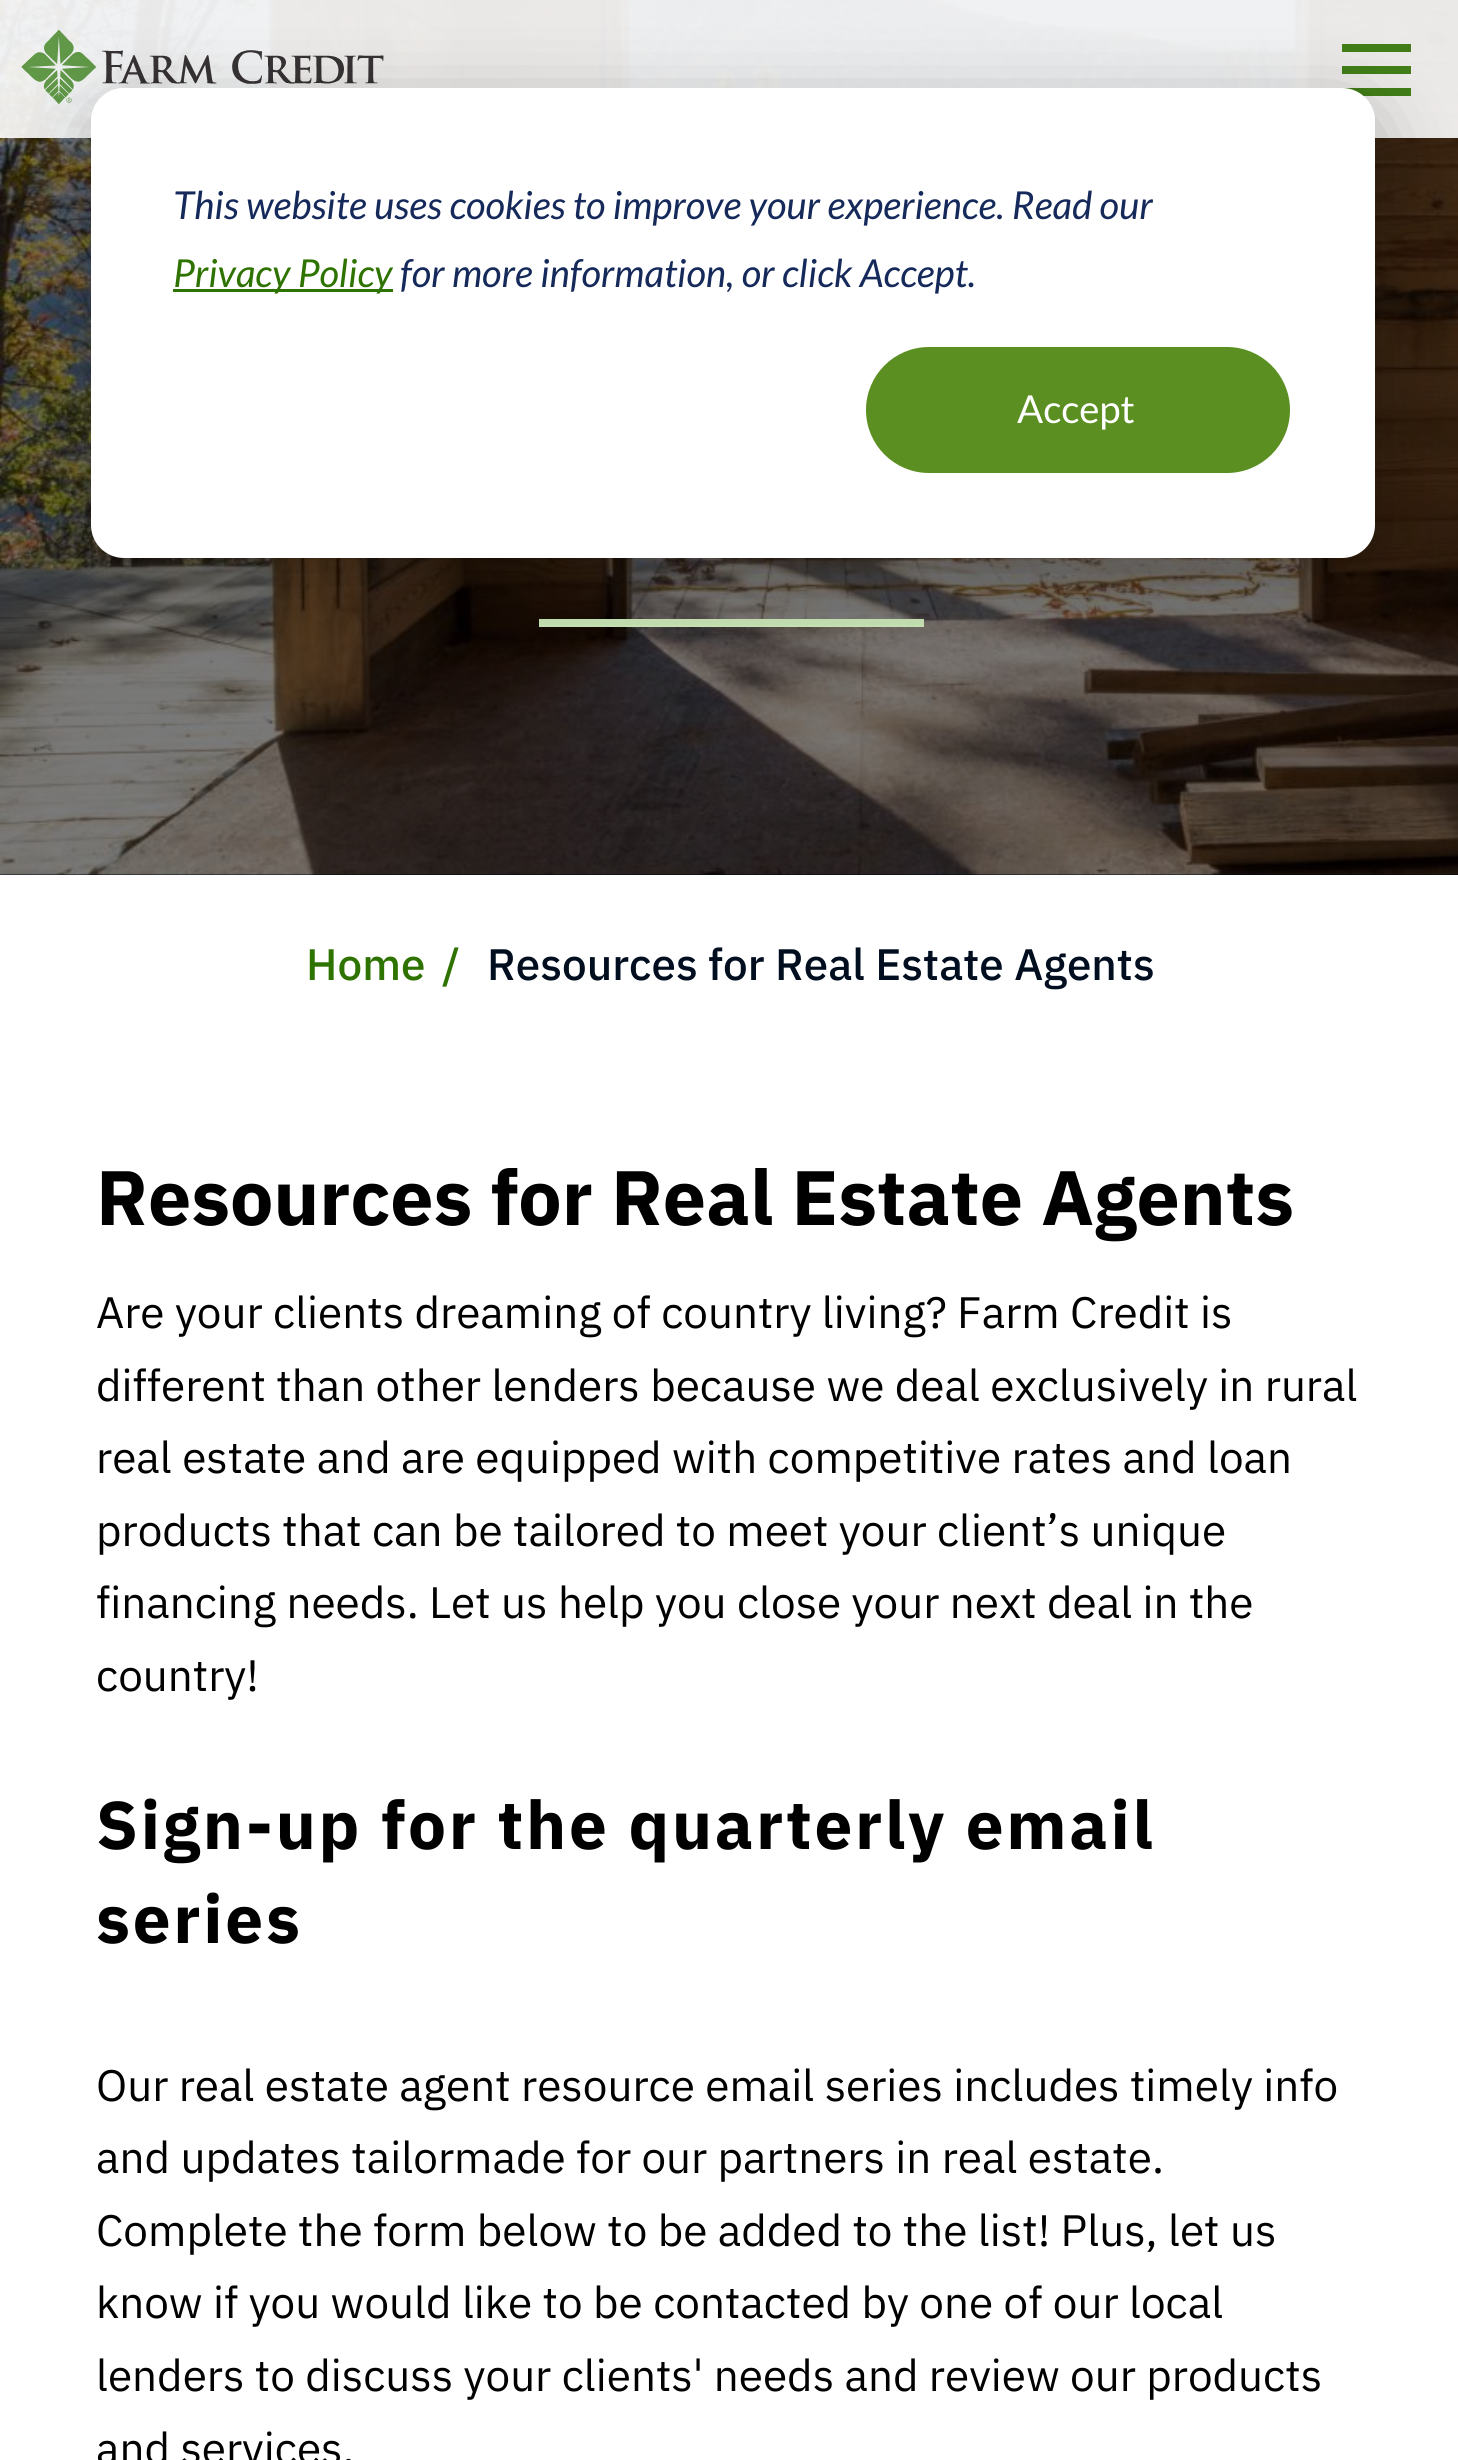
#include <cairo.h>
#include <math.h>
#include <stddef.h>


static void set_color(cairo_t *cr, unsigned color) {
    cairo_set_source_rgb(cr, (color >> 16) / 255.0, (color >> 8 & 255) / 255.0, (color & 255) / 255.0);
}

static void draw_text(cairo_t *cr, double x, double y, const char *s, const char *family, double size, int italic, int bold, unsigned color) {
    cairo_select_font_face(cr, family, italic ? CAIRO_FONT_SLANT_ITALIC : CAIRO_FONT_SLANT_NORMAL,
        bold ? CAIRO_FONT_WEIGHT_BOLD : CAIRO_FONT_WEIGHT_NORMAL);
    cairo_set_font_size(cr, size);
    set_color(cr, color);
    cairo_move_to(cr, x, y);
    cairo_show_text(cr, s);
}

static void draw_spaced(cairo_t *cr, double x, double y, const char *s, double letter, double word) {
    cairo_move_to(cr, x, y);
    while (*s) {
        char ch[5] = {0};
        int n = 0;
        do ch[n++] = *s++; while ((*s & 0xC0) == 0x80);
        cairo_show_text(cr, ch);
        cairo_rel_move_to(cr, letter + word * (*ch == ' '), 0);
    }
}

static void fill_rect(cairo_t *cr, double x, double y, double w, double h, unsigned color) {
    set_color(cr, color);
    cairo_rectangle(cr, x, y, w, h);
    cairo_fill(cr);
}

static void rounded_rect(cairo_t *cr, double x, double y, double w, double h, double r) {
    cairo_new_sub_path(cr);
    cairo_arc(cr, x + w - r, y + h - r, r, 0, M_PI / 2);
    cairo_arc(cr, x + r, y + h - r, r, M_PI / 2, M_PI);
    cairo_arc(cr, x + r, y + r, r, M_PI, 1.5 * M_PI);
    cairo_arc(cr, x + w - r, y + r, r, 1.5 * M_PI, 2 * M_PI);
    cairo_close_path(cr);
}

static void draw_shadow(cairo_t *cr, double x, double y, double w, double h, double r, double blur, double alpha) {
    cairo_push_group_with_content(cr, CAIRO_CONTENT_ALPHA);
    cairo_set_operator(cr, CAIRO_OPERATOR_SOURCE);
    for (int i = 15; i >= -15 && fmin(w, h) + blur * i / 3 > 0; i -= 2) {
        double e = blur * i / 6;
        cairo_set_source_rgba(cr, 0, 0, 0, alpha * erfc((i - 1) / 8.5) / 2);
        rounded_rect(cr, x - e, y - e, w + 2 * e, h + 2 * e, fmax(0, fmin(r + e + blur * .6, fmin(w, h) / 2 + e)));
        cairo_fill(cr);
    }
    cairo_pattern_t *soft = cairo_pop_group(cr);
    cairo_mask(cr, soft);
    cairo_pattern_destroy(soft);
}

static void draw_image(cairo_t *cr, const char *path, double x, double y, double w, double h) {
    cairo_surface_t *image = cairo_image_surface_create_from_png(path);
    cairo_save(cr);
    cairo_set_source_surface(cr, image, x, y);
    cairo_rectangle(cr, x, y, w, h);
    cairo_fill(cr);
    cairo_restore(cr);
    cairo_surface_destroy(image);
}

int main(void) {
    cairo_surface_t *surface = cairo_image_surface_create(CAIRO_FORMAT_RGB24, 1458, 2460);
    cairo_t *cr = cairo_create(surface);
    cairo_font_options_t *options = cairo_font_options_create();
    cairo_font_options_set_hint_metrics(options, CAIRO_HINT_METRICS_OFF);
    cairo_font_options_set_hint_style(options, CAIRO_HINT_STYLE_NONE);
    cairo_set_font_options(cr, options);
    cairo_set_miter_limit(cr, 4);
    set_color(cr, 0xFFFFFF);
    cairo_paint(cr);
    fill_rect(cr, 0, 874, 1458, 1, 0x000C1B);
    draw_image(cr, "assets/img2.png", 0, 0, 1458, 875);
    cairo_set_source_rgba(cr, 1, 1, 1, 0.9);
    cairo_rectangle(cr, 0, 0, 1458, 138);
    cairo_fill(cr);
    draw_image(cr, "assets/img1.png", 21, 29, 363, 76);
    fill_rect(cr, 1342, 66, 69, 8, 0x417E17);
    fill_rect(cr, 1342, 44, 69, 8, 0x417E17);
    fill_rect(cr, 1342, 88, 69, 8, 0x417E17);
    fill_rect(cr, 539, 619, 385, 8, 0xC9E5B5);
    cairo_save(cr);
    cairo_set_fill_rule(cr, CAIRO_FILL_RULE_EVEN_ODD);
    cairo_new_path(cr);
    cairo_move_to(cr, 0, 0);
    cairo_line_to(cr, 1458, 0);
    cairo_line_to(cr, 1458, 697);
    cairo_line_to(cr, 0, 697);
    cairo_close_path(cr);
    cairo_move_to(cr, 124, 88);
    cairo_line_to(cr, 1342, 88);
    cairo_curve_to(cr, 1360, 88, 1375, 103, 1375, 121);
    cairo_line_to(cr, 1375, 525);
    cairo_curve_to(cr, 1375, 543, 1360, 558, 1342, 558);
    cairo_line_to(cr, 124, 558);
    cairo_curve_to(cr, 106, 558, 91, 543, 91, 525);
    cairo_line_to(cr, 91, 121);
    cairo_curve_to(cr, 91, 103, 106, 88, 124, 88);
    cairo_close_path(cr);
    cairo_clip(cr);
    set_color(cr, 0x000000);
    draw_shadow(cr, 91, 110, 1284, 470, 33, 38.5, 0.28);
    cairo_restore(cr);
    set_color(cr, 0xFFFFFF);
    rounded_rect(cr, 91, 88, 1284, 470, 33);
    cairo_fill(cr);
    draw_text(cr, 173, 219, "This website uses cookies to improve your experience. Read our", "Lato", 38.5, 1, 0, 0x15295A);
    fill_rect(cr, 173, 289, 220, 3, 0x2E7200);
    draw_text(cr, 173, 287, "Privacy Policy", "Lato", 38.5, 1, 0, 0x2E7200);
    draw_text(cr, 400, 287, "for more information, or click Accept.", "Lato", 38.5, 1, 0, 0x15295A);
    set_color(cr, 0x5B8F22);
    rounded_rect(cr, 867.5, 348.5, 421, 123, 61.5);
    cairo_fill_preserve(cr);
    cairo_set_line_width(cr, 3);
    cairo_stroke(cr);
    draw_text(cr, 1017, 423, "Accept", "Lato", 38.5, 0, 0, 0xFFFFFF);
    draw_text(cr, 306, 980, "Home", "IBM Plex Sans Medium", 44, 0, 0, 0x2E7200);
    draw_text(cr, 442, 980, "/", "IBM Plex Sans Medium", 44, 0, 0, 0x2E7200);
    draw_text(cr, 487, 980, "Resources for Real Estate Agents", "IBM Plex Sans Medium", 44, 0, 0, 0x000E20);
    draw_text(cr, 96, 1225, "Resources for Real Estate Agents", "IBM Plex Sans", 77, 0, 1, 0x000000);
    draw_text(cr, 96, 1328, "Are your clients dreaming of country living? Farm Credit is", "IBM Plex Sans", 44, 0, 0, 0x000000);
    draw_text(cr, 96, 1401, "different than other lenders because we deal exclusively in rural", "IBM Plex Sans", 44, 0, 0, 0x000000);
    draw_text(cr, 96, 1473, "real estate and are equipped with competitive rates and loan", "IBM Plex Sans", 44, 0, 0, 0x000000);
    draw_text(cr, 96, 1546, "products that can be tailored to meet your client’s unique", "IBM Plex Sans", 44, 0, 0, 0x000000);
    draw_text(cr, 96, 1618, "financing needs. Let us help you close your next deal in the", "IBM Plex Sans", 44, 0, 0, 0x000000);
    draw_text(cr, 96, 1691, "country!", "IBM Plex Sans", 44, 0, 0, 0x000000);
    cairo_select_font_face(cr, "IBM Plex Sans", CAIRO_FONT_SLANT_NORMAL, CAIRO_FONT_WEIGHT_BOLD);
    cairo_set_font_size(cr, 67.4);
    draw_spaced(cr, 96, 1849, "Sign-up for the quarterly email", 2.75, 0);
    draw_spaced(cr, 96, 1943, "series", 2.75, 0);
    draw_text(cr, 96, 2101, "Our real estate agent resource email series includes timely info", "IBM Plex Sans", 44, 0, 0, 0x000000);
    draw_text(cr, 96, 2173, "and updates tailormade for our partners in real estate.", "IBM Plex Sans", 44, 0, 0, 0x000000);
    draw_text(cr, 96, 2246, "Complete the form below to be added to the list! Plus, let us", "IBM Plex Sans", 44, 0, 0, 0x000000);
    draw_text(cr, 96, 2318, "know if you would like to be contacted by one of our local", "IBM Plex Sans", 44, 0, 0, 0x000000);
    draw_text(cr, 96, 2391, "lenders to discuss your clients' needs and review our products", "IBM Plex Sans", 44, 0, 0, 0x000000);
    draw_text(cr, 96, 2464, "and services.", "IBM Plex Sans", 44, 0, 0, 0x000000);
    cairo_surface_write_to_png(surface, "output.png");
    cairo_font_options_destroy(options);
    cairo_destroy(cr);
    cairo_surface_destroy(surface);
    return 0;
}
